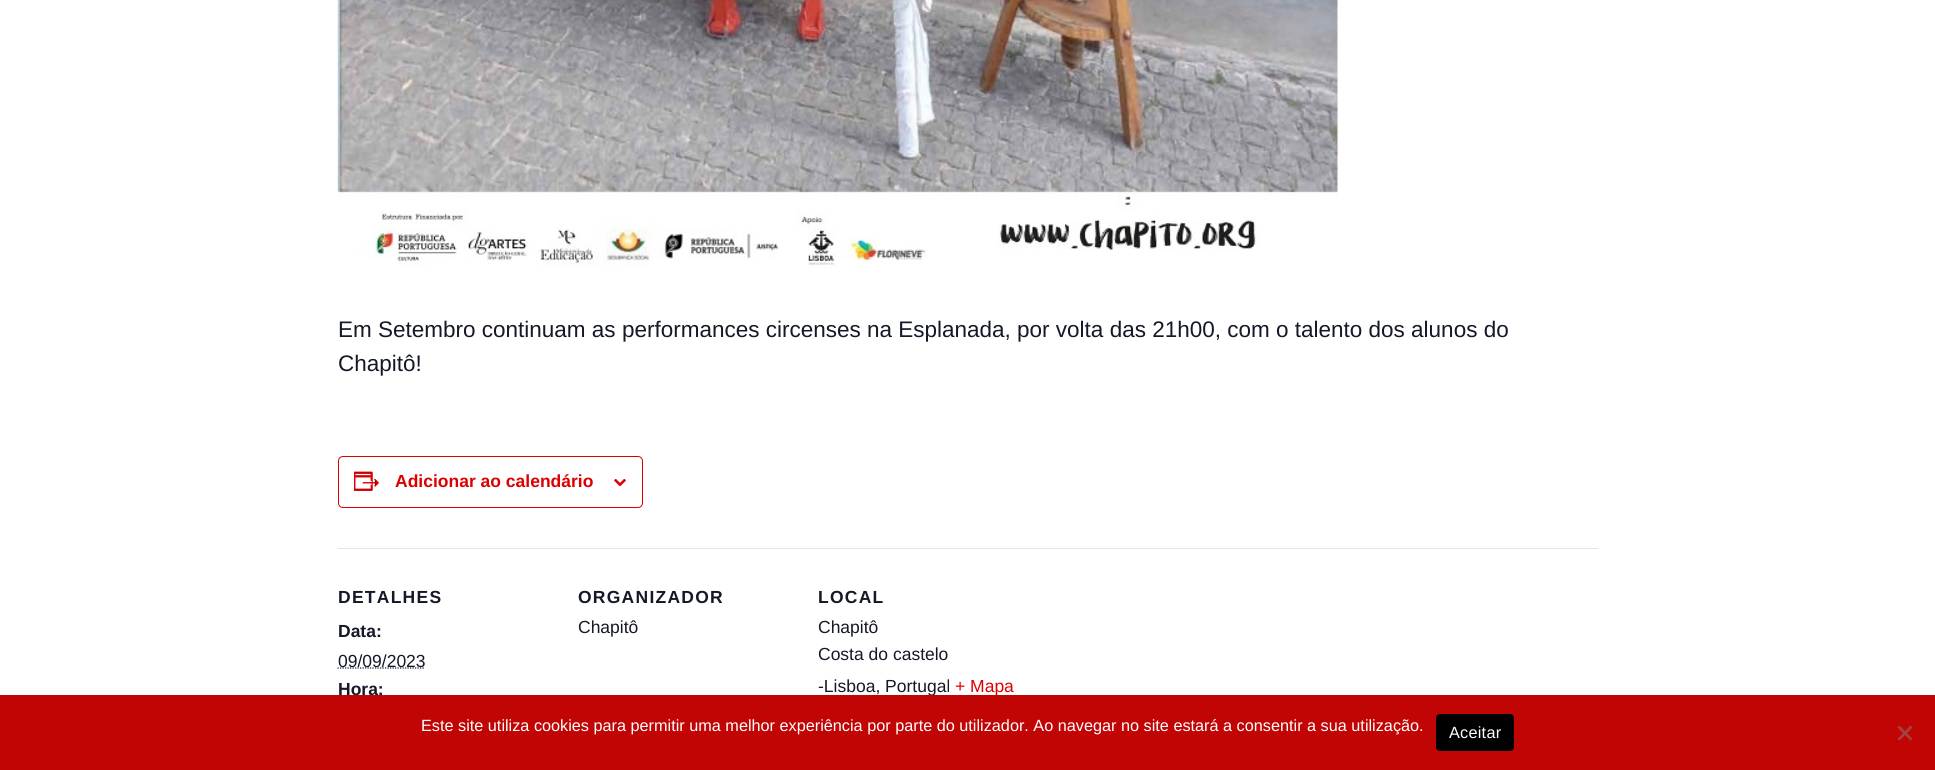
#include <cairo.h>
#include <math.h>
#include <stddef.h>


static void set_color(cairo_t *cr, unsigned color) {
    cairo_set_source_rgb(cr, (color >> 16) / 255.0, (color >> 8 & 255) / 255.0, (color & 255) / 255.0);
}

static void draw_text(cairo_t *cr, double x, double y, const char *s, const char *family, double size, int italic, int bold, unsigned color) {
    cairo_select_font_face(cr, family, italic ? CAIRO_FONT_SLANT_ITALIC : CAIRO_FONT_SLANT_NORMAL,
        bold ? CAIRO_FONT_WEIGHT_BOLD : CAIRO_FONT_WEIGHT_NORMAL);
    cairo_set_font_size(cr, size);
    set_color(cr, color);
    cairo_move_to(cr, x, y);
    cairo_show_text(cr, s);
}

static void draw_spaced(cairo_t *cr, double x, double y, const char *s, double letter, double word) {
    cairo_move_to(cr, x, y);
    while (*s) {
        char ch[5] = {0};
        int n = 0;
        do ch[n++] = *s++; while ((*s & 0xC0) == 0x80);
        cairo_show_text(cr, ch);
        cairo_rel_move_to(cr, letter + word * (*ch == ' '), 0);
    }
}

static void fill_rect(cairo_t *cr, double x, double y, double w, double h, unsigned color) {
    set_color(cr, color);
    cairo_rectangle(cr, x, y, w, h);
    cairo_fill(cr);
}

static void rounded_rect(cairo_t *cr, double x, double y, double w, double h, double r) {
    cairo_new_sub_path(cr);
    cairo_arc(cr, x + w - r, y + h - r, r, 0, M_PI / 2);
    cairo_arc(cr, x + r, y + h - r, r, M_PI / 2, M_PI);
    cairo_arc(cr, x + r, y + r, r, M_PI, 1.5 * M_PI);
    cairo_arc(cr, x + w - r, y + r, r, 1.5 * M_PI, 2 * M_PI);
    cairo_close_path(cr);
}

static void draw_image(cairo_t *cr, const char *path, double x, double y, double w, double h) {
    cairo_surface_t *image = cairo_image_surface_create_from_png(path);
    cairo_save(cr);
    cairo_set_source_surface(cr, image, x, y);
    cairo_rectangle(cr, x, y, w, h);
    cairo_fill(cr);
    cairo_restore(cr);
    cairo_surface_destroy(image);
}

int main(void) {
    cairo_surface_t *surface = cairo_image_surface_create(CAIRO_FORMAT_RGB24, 1935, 770);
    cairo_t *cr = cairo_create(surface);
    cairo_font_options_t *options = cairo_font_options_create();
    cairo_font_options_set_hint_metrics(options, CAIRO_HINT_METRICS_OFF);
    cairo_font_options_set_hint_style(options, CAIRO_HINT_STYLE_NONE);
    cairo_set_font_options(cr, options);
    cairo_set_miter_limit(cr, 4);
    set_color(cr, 0xFFFFFF);
    cairo_paint(cr);
    draw_image(cr, "assets/img1.png", 337, 0, 1001, 268);
    draw_text(cr, 338, 337, "Em Setembro continuam as performances circenses na Esplanada, por volta das 21h00, com o talento dos alunos do", "Liberation Sans", 22.5, 0, 0, 0x141827);
    draw_text(cr, 338, 371, "Chapitô!", "Liberation Sans", 22.5, 0, 0, 0x141827);
    rounded_rect(cr, 338.5, 456.5, 304, 51, 4.5);
    set_color(cr, 0xDD0000);
    cairo_set_line_width(cr, 1);
    cairo_stroke(cr);
    draw_image(cr, "assets/img2.png", 354, 471, 25, 20);
    draw_text(cr, 395, 487, "Adicionar ao calendário", "Liberation Sans", 17.5, 0, 1, 0xDD0000);
    draw_image(cr, "assets/img3.png", 614, 479, 12, 7);
    fill_rect(cr, 338, 548, 1260, 1, 0xE4E4E4);
    set_color(cr, 0x141827);
    draw_spaced(cr, 338, 603, "DETALHES", 1.25, 0);
    draw_text(cr, 338, 637, "Data:", "Liberation Sans", 17.5, 0, 1, 0x141827);
    cairo_new_path(cr);
    cairo_move_to(cr, 337.5, 668);
    cairo_line_to(cr, 425, 668);
    cairo_set_line_width(cr, 1.2);
    cairo_set_dash(cr, (double[]){1.25, 1.25}, 2, 0);
    cairo_stroke(cr);
    draw_text(cr, 338, 667, "09/09/2023", "Liberation Sans", 17.5, 0, 0, 0x141827);
    draw_text(cr, 338, 695, "Hora:", "Liberation Sans", 17.5, 0, 1, 0x141827);
    draw_spaced(cr, 578, 603, "ORGANIZADOR", 1.25, 0);
    draw_text(cr, 578, 633, "Chapitô", "Liberation Sans", 17.5, 0, 0, 0x141827);
    cairo_select_font_face(cr, "Liberation Sans", CAIRO_FONT_SLANT_NORMAL, CAIRO_FONT_WEIGHT_BOLD);
    draw_spaced(cr, 818, 603, "LOCAL", 1.25, 0);
    draw_text(cr, 818, 633, "Chapitô", "Liberation Sans", 17.5, 0, 0, 0x141827);
    draw_text(cr, 818, 660, "Costa do castelo", "Liberation Sans", 17.5, 0, 0, 0x141827);
    draw_text(cr, 818, 692, "-Lisboa, Portugal", "Liberation Sans", 17.5, 0, 0, 0x141827);
    draw_text(cr, 955, 692, "+ Mapa", "Liberation Sans", 17.5, 0, 0, 0xDD0000);
    fill_rect(cr, 0, 695, 1935, 75, 0xC10505);
    draw_text(cr, 421, 731, "Este site utiliza cookies para permitir uma melhor experiência por parte do utilizador. Ao navegar no site estará a consentir a sua utilização.", "Liberation Sans", 16.25, 0, 0, 0xFFFFFF);
    set_color(cr, 0x000000);
    rounded_rect(cr, 1436, 714, 78, 37, 4);
    cairo_fill(cr);
    set_color(cr, 0xFFFFFF);
    draw_spaced(cr, 1449, 738, "Aceitar", 0.25, 0);
    set_color(cr, 0xA14343);
    cairo_new_path(cr);
    cairo_move_to(cr, 1910.5, 725.5);
    cairo_line_to(cr, 1912.5, 727.5);
    cairo_line_to(cr, 1899.5, 740.5);
    cairo_line_to(cr, 1897.5, 739);
    cairo_close_path(cr);
    cairo_fill(cr);
    cairo_new_path(cr);
    cairo_move_to(cr, 1897.5, 727.5);
    cairo_line_to(cr, 1899.5, 725.5);
    cairo_line_to(cr, 1912.5, 739);
    cairo_line_to(cr, 1910.5, 740.5);
    cairo_close_path(cr);
    cairo_fill(cr);
    cairo_surface_write_to_png(surface, "output.png");
    cairo_font_options_destroy(options);
    cairo_destroy(cr);
    cairo_surface_destroy(surface);
    return 0;
}
